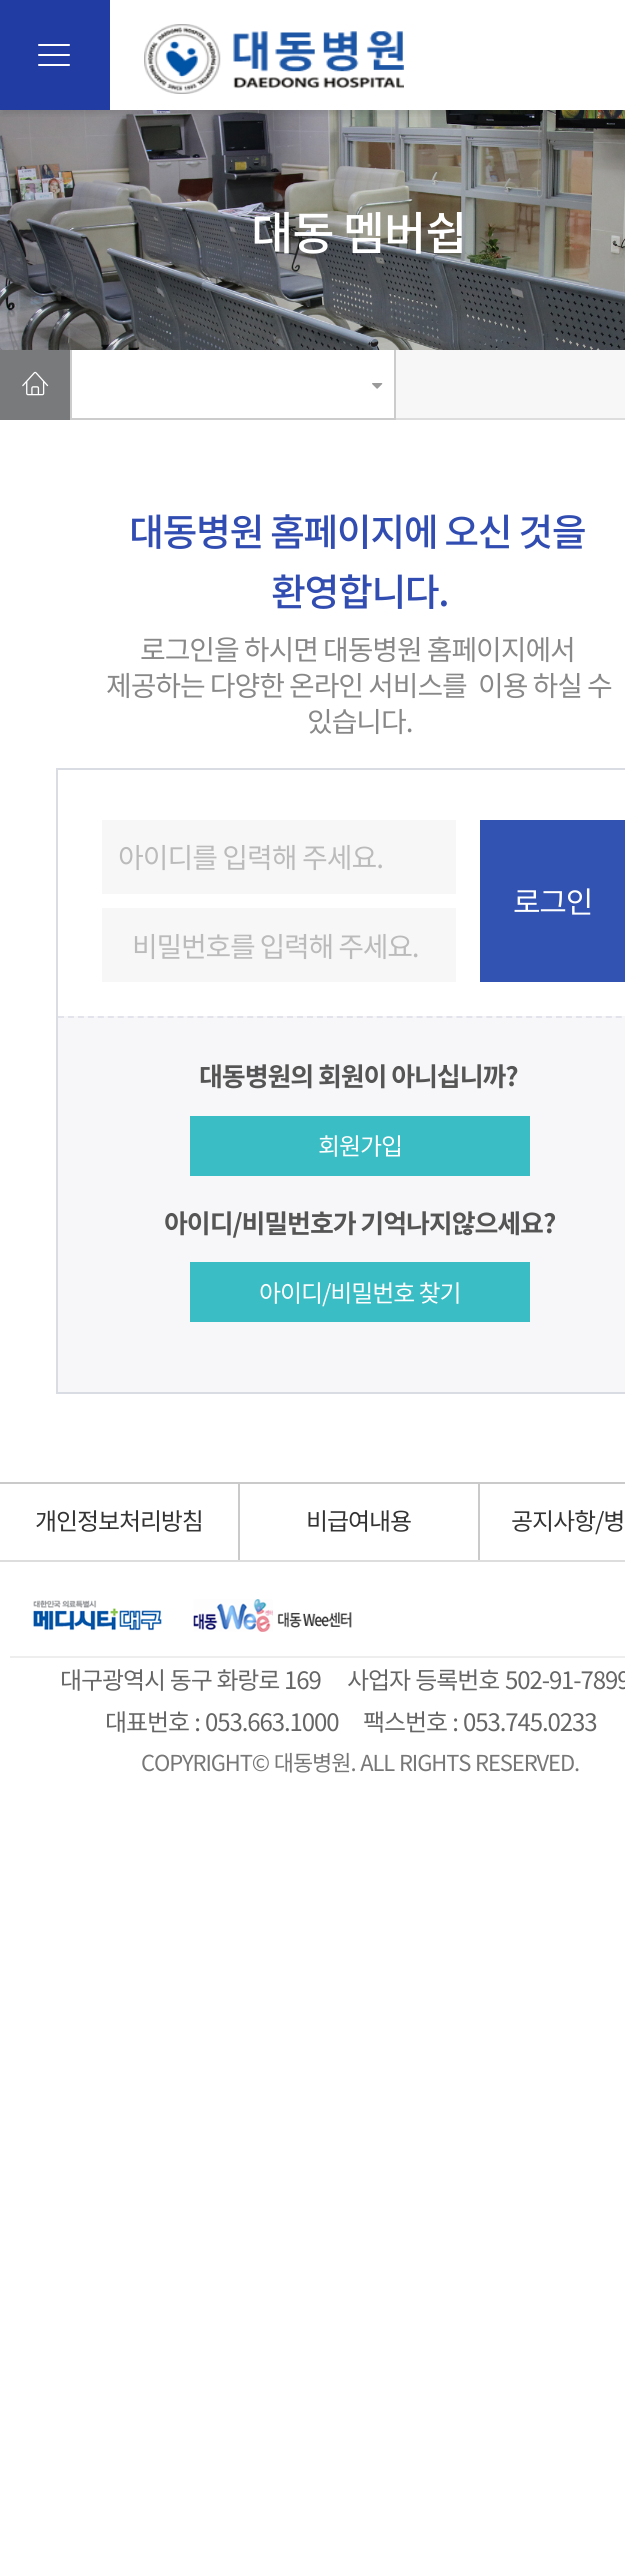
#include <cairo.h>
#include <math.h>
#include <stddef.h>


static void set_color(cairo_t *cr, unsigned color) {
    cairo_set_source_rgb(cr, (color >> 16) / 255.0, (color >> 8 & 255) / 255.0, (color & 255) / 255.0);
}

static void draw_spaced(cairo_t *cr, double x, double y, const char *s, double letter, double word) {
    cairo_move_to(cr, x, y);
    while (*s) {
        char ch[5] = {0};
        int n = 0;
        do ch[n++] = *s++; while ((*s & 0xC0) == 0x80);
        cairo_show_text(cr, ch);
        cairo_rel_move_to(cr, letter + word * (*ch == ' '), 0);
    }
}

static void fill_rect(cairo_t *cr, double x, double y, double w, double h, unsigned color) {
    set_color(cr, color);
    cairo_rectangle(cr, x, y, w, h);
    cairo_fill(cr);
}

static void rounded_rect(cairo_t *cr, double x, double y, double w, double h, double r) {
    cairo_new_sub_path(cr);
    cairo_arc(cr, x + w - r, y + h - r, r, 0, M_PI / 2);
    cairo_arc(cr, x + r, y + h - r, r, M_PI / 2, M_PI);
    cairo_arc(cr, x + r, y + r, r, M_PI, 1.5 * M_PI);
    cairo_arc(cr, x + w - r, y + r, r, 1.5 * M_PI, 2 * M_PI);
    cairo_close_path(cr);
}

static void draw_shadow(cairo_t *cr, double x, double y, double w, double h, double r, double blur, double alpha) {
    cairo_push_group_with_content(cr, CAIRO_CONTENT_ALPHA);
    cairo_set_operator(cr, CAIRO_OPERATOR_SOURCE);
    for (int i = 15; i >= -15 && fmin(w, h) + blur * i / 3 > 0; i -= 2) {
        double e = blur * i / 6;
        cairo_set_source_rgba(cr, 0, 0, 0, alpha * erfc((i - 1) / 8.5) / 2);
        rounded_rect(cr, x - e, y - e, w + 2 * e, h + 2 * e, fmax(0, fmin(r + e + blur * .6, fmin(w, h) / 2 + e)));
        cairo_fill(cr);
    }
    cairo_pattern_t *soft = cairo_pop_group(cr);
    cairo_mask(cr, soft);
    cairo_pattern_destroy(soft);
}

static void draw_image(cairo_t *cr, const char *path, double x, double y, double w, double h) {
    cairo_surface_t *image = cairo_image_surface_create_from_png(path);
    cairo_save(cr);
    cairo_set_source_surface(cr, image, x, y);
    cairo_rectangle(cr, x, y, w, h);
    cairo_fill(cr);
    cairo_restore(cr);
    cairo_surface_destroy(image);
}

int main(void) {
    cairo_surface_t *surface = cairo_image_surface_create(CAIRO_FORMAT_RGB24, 625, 2575);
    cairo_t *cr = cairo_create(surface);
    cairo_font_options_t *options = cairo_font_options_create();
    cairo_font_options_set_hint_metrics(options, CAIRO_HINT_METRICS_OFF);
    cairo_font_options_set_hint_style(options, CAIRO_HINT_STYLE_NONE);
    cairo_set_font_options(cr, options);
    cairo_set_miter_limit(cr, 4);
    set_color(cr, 0xFFFFFF);
    cairo_paint(cr);
    draw_image(cr, "assets/img3.png", 0, 110, 625, 240);
    cairo_save(cr);
    cairo_rectangle(cr, 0, 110, 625, 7);
    cairo_clip(cr);
    set_color(cr, 0x000000);
    draw_shadow(cr, 2, 4, 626, 110, 0, 3, 0.1);
    cairo_restore(cr);
    fill_rect(cr, 0, 0, 110, 110, 0x213CA2);
    draw_image(cr, "assets/img1.png", 38, 44, 32, 22);
    draw_image(cr, "assets/img2.png", 144, 24, 260, 70);
    cairo_select_font_face(cr, "Noto Sans KR Medium", CAIRO_FONT_SLANT_NORMAL, CAIRO_FONT_WEIGHT_NORMAL);
    cairo_set_font_size(cr, 46);
    set_color(cr, 0xFFFFFF);
    draw_spaced(cr, 251, 250, "대동 멤버쉽", -1.1, 0);
    fill_rect(cr, 396, 350, 229, 68, 0xF7F7F7);
    fill_rect(cr, 396, 418, 229, 2, 0xDDDDDD);
    fill_rect(cr, 0, 350, 70, 70, 0x797A7C);
    draw_image(cr, "assets/img4.png", 22, 371, 27, 25);
    fill_rect(cr, 394, 350, 2, 70, 0xCCCCCC);
    fill_rect(cr, 70, 418, 326, 2, 0xCCCCCC);
    fill_rect(cr, 70, 350, 2, 70, 0xCCCCCC);
    draw_image(cr, "assets/img5.png", 372, 383, 11, 6);
    cairo_set_font_size(cr, 38);
    set_color(cr, 0x324DB2);
    draw_spaced(cr, 129, 546, "대동병원 홈페이지에 오신 것을", -1.5, 0);
    draw_spaced(cr, 271, 606, "환영합니다.", -1.5, 0);
    cairo_select_font_face(cr, "Noto Sans KR", CAIRO_FONT_SLANT_NORMAL, CAIRO_FONT_WEIGHT_NORMAL);
    cairo_set_font_size(cr, 28);
    set_color(cr, 0x888888);
    draw_spaced(cr, 140, 660, "로그인을 하시면 대동병원 홈페이지에서", -1.1, 0);
    draw_spaced(cr, 106, 696, "제공하는 다양한 온라인 서비스를", -1.1, 0);
    draw_spaced(cr, 478, 696, "이용 하실 수", -1.1, 0);
    draw_spaced(cr, 307, 732, "있습니다.", -1.1, 0);
    fill_rect(cr, 58, 1016, 567, 376, 0xF7F7F9);
    cairo_rectangle(cr, 57, 769, 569, 624);
    set_color(cr, 0xDADCE4);
    cairo_stroke(cr);
    fill_rect(cr, 102, 820, 354, 74, 0xF7F7F7);
    set_color(cr, 0xBBBBBB);
    draw_spaced(cr, 118, 868, "아이디를 입력해 주세요.", -1, 0);
    fill_rect(cr, 102, 908, 354, 74, 0xF7F7F7);
    set_color(cr, 0xBBBBBB);
    draw_spaced(cr, 132, 957, "비밀번호를 입력해 주세요.", -1.25, 0);
    fill_rect(cr, 480, 820, 145, 162, 0x3253B2);
    cairo_set_font_size(cr, 30);
    set_color(cr, 0xFFFFFF);
    draw_spaced(cr, 513, 913, "로그인", -1.25, 0);
    cairo_new_path(cr);
    cairo_move_to(cr, 58, 1017);
    cairo_line_to(cr, 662, 1017);
    set_color(cr, 0xE3E3EC);
    cairo_set_dash(cr, (double[]){6, 3.96}, 2, 0);
    cairo_stroke(cr);
    cairo_select_font_face(cr, "Noto Sans KR", CAIRO_FONT_SLANT_NORMAL, CAIRO_FONT_WEIGHT_BOLD);
    cairo_set_font_size(cr, 26);
    set_color(cr, 0x555555);
    draw_spaced(cr, 199, 1086, "대동병원의 회원이 아니십니까?", -1.1, 0);
    fill_rect(cr, 190, 1116, 340, 60, 0x3ABDC5);
    cairo_select_font_face(cr, "Noto Sans KR", CAIRO_FONT_SLANT_NORMAL, CAIRO_FONT_WEIGHT_NORMAL);
    cairo_set_font_size(cr, 24);
    set_color(cr, 0xFFFFFF);
    draw_spaced(cr, 318, 1155, "회원가입", -1.1, 0);
    cairo_select_font_face(cr, "Noto Sans KR", CAIRO_FONT_SLANT_NORMAL, CAIRO_FONT_WEIGHT_BOLD);
    cairo_set_font_size(cr, 26);
    set_color(cr, 0x555555);
    draw_spaced(cr, 164, 1233, "아이디/비밀번호가 기억나지않으세요?", -1.1, 0);
    fill_rect(cr, 190, 1262, 340, 60, 0x3ABDC5);
    cairo_select_font_face(cr, "Noto Sans KR", CAIRO_FONT_SLANT_NORMAL, CAIRO_FONT_WEIGHT_NORMAL);
    cairo_set_font_size(cr, 24);
    set_color(cr, 0xFFFFFF);
    draw_spaced(cr, 259, 1302, "아이디/비밀번호 찾기", -1.1, 0);
    fill_rect(cr, 0, 1482, 625, 2, 0xCACACA);
    fill_rect(cr, 238, 1484, 2, 78, 0xCACACA);
    set_color(cr, 0x333333);
    draw_spaced(cr, 35, 1530, "개인정보처리방침", -1.1, 0);
    fill_rect(cr, 478, 1484, 2, 78, 0xCACACA);
    set_color(cr, 0x333333);
    draw_spaced(cr, 306, 1530, "비급여내용", -1.1, 0);
    draw_spaced(cr, 511, 1530, "공지사항/병", -1.1, 0);
    fill_rect(cr, 0, 1560, 625, 2, 0xDDDDDD);
    fill_rect(cr, 10, 1656, 615, 2, 0xEEEEEE);
    draw_image(cr, "assets/img6.png", 33, 1600, 129, 31);
    draw_image(cr, "assets/img7.png", 193, 1599, 159, 33);
    set_color(cr, 0x666666);
    draw_spaced(cr, 60, 1689, "대구광역시 동구 화랑로 169", -1.1, 0.5);
    draw_spaced(cr, 347, 1689, "사업자 등록번호", -1.1, 1);
    draw_spaced(cr, 505, 1689, "502-91-7899", -1.1, 0);
    draw_spaced(cr, 105, 1731, "대표번호 : 053.663.1000", -1.1, 1);
    draw_spaced(cr, 363, 1731, "팩스번호 : 053.745.0233", -1.1, 1);
    cairo_set_font_size(cr, 22);
    set_color(cr, 0x777777);
    draw_spaced(cr, 141, 1771, "COPYRIGHT© 대동병원. ALL RIGHTS RESERVED.", -1.1, 1);
    cairo_surface_write_to_png(surface, "output.png");
    cairo_font_options_destroy(options);
    cairo_destroy(cr);
    cairo_surface_destroy(surface);
    return 0;
}
